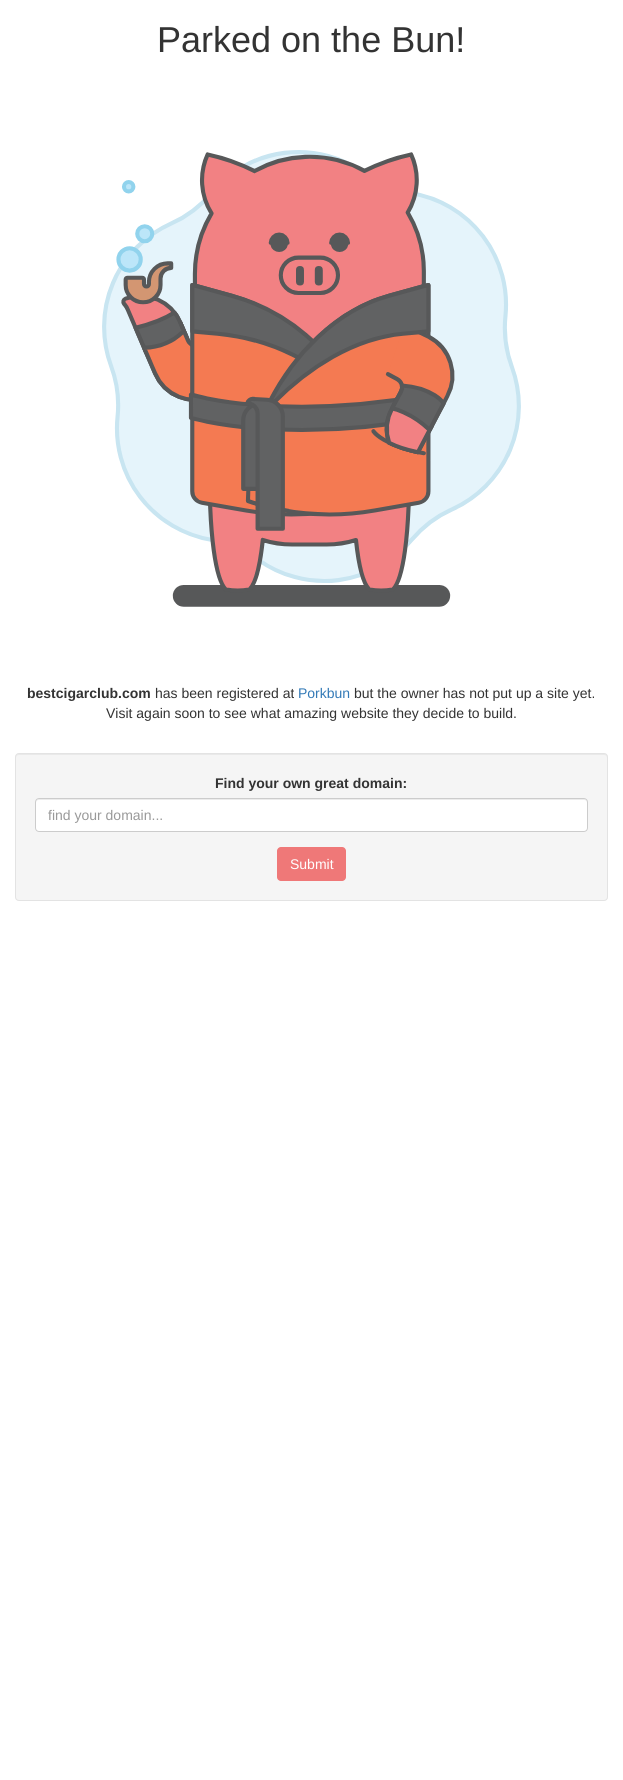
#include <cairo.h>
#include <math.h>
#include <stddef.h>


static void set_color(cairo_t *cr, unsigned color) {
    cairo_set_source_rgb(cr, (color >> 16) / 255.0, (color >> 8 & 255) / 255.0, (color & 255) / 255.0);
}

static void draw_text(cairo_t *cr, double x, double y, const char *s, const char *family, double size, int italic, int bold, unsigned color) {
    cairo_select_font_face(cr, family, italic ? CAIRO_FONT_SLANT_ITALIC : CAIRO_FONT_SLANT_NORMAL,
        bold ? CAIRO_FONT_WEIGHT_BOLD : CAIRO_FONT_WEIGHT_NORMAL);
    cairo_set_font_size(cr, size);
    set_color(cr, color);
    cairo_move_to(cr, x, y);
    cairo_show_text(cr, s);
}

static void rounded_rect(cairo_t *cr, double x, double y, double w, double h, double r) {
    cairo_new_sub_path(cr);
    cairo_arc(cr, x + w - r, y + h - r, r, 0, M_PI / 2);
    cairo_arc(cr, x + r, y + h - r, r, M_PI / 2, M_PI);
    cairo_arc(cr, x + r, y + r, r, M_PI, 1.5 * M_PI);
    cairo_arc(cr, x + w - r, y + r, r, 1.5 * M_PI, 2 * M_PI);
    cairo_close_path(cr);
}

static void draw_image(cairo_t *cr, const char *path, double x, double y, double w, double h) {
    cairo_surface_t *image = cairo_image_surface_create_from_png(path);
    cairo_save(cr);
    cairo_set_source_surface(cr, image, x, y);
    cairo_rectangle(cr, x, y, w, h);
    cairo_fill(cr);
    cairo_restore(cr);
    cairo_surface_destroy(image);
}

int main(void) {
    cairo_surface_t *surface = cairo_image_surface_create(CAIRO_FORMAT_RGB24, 623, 1780);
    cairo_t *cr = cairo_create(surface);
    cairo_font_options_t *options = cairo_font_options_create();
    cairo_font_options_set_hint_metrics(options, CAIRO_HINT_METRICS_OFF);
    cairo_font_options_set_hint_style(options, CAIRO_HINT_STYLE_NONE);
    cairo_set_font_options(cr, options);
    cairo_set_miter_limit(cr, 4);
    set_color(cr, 0xFFFFFF);
    cairo_paint(cr);
    draw_text(cr, 157, 52, "Parked on the Bun!", "Liberation Sans", 36, 0, 0, 0x333333);
    draw_image(cr, "assets/img1.png", 102, 150, 419, 457);
    draw_text(cr, 27, 698, "bestcigarclub.com", "Liberation Sans", 14, 0, 1, 0x333333);
    draw_text(cr, 155, 698, "has been registered at", "Liberation Sans", 14, 0, 0, 0x333333);
    draw_text(cr, 298, 698, "Porkbun", "Liberation Sans", 14, 0, 0, 0x337AB7);
    draw_text(cr, 354, 698, "but the owner has not put up a site yet.", "Liberation Sans", 14, 0, 0, 0x333333);
    draw_text(cr, 106, 718, "Visit again soon to see what amazing website they decide to build.", "Liberation Sans", 14, 0, 0, 0x333333);
    set_color(cr, 0xF5F5F5);
    rounded_rect(cr, 15, 753, 593, 148, 4);
    cairo_fill(cr);
    set_color(cr, 0xE9E9E9);
    cairo_new_path(cr);
    cairo_move_to(cr, 19, 755);
    cairo_line_to(cr, 604, 755);
    cairo_curve_to(cr, 606, 755, 607, 756, 607, 758);
    cairo_line_to(cr, 607, 757);
    cairo_curve_to(cr, 607, 755, 606, 754, 604, 754);
    cairo_line_to(cr, 19, 754);
    cairo_curve_to(cr, 17, 754, 16, 755, 16, 757);
    cairo_line_to(cr, 16, 758);
    cairo_curve_to(cr, 16, 756, 17, 755, 19, 755);
    cairo_close_path(cr);
    cairo_fill(cr);
    rounded_rect(cr, 15.5, 753.5, 592, 147, 3.5);
    set_color(cr, 0xE3E3E3);
    cairo_set_line_width(cr, 1);
    cairo_stroke(cr);
    draw_text(cr, 215, 788, "Find your own great domain:", "Liberation Sans", 14, 0, 1, 0x333333);
    set_color(cr, 0xFFFFFF);
    rounded_rect(cr, 35, 798, 553, 34, 4);
    cairo_fill(cr);
    set_color(cr, 0xECECEC);
    cairo_new_path(cr);
    cairo_move_to(cr, 39, 800);
    cairo_line_to(cr, 584, 800);
    cairo_curve_to(cr, 586, 800, 587, 801, 587, 803);
    cairo_line_to(cr, 587, 802);
    cairo_curve_to(cr, 587, 800, 586, 799, 584, 799);
    cairo_line_to(cr, 39, 799);
    cairo_curve_to(cr, 37, 799, 36, 800, 36, 802);
    cairo_line_to(cr, 36, 803);
    cairo_curve_to(cr, 36, 801, 37, 800, 39, 800);
    cairo_close_path(cr);
    cairo_fill(cr);
    rounded_rect(cr, 35.5, 798.5, 552, 33, 3.5);
    set_color(cr, 0xCCCCCC);
    cairo_stroke(cr);
    draw_text(cr, 48, 820, "find your domain...", "Liberation Sans", 14, 0, 0, 0x999999);
    set_color(cr, 0xEF7878);
    rounded_rect(cr, 277, 847, 69, 34, 4);
    cairo_fill(cr);
    draw_text(cr, 290, 869, "Submit", "Liberation Sans", 14, 0, 0, 0xFFFFFF);
    cairo_surface_write_to_png(surface, "output.png");
    cairo_font_options_destroy(options);
    cairo_destroy(cr);
    cairo_surface_destroy(surface);
    return 0;
}
